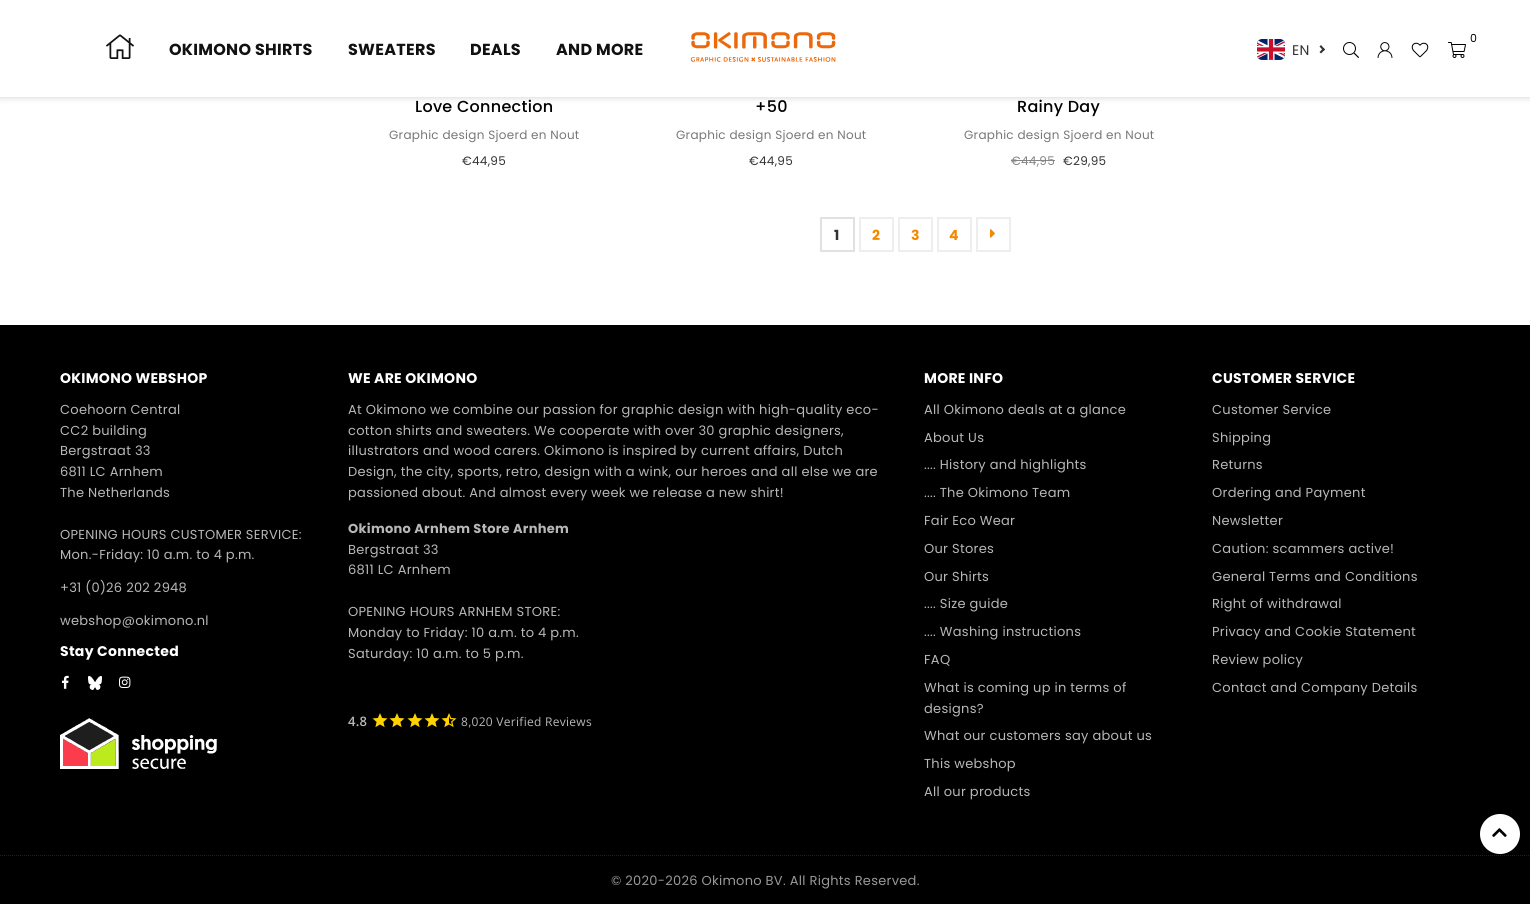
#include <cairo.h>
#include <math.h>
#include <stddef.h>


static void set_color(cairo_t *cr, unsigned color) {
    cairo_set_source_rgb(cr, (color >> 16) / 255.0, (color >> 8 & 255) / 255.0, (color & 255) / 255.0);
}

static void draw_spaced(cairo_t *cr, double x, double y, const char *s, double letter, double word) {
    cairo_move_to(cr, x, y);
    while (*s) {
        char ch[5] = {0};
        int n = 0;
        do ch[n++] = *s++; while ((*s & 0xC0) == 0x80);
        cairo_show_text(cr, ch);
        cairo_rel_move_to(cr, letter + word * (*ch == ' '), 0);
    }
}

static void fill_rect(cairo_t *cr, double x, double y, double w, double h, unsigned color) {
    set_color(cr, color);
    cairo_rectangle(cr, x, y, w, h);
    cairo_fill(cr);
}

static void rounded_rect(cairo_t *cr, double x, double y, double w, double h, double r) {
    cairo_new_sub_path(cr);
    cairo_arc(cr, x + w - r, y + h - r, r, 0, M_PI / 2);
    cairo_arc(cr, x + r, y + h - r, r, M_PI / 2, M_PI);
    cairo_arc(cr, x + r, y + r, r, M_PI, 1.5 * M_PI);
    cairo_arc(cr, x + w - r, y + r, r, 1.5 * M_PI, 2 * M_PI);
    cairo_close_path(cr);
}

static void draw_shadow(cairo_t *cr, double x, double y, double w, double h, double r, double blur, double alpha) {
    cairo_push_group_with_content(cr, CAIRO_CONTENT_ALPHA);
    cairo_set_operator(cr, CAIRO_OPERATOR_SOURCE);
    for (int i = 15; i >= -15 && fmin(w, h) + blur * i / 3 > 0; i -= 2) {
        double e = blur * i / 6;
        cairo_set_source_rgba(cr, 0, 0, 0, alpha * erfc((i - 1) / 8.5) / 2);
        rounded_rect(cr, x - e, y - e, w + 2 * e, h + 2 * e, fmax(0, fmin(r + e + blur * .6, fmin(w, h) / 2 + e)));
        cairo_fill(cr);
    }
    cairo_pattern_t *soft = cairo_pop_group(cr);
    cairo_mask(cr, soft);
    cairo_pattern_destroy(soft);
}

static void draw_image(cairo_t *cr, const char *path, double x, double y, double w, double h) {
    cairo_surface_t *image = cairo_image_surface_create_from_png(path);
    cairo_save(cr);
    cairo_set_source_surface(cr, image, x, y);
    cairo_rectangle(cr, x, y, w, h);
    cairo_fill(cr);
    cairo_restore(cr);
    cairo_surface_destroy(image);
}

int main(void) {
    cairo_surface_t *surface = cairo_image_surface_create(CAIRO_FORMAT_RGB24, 1530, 904);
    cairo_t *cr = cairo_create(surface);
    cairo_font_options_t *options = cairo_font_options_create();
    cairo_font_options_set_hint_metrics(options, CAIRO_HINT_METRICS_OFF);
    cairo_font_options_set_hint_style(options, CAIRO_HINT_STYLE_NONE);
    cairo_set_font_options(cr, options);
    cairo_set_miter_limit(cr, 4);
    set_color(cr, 0xFFFFFF);
    cairo_paint(cr);
    set_color(cr, 0x000000);
    draw_shadow(cr, 0, 0, 1530, 97, 0, 3.5, 0.2);
    fill_rect(cr, 0, 0, 1530, 97, 0xFFFFFF);
    draw_image(cr, "assets/img1.png", 690, 32, 146, 30);
    cairo_select_font_face(cr, "Poppins", CAIRO_FONT_SLANT_NORMAL, CAIRO_FONT_WEIGHT_NORMAL);
    cairo_set_font_size(cr, 11);
    set_color(cr, 0x000000);
    draw_spaced(cr, 1470, 42, "0", 0.28, 0);
    draw_image(cr, "assets/img2.png", 1448, 42, 18, 16);
    draw_image(cr, "assets/img3.png", 106, 34, 28, 25);
    cairo_select_font_face(cr, "Poppins", CAIRO_FONT_SLANT_NORMAL, CAIRO_FONT_WEIGHT_BOLD);
    cairo_set_font_size(cr, 16);
    set_color(cr, 0x111111);
    draw_spaced(cr, 169, 55, "OKIMONO SHIRTS", 0.28, 0);
    draw_spaced(cr, 348, 55, "SWEATERS", 0.28, 0);
    draw_spaced(cr, 470, 55, "DEALS", 0.28, 0);
    draw_spaced(cr, 556, 55, "AND MORE", 0.28, 0);
    draw_image(cr, "assets/img4.png", 1257, 39, 28, 21);
    cairo_select_font_face(cr, "Poppins", CAIRO_FONT_SLANT_NORMAL, CAIRO_FONT_WEIGHT_NORMAL);
    cairo_set_font_size(cr, 14);
    set_color(cr, 0x333333);
    draw_spaced(cr, 1292, 55, "EN", 0.28, 0);
    cairo_new_path(cr);
    cairo_move_to(cr, 1321, 45);
    cairo_line_to(cr, 1325, 49.5);
    cairo_line_to(cr, 1323.5, 51);
    cairo_line_to(cr, 1319.5, 46.5);
    cairo_close_path(cr);
    cairo_fill(cr);
    cairo_new_path(cr);
    cairo_move_to(cr, 1323.5, 48);
    cairo_line_to(cr, 1325, 49.5);
    cairo_line_to(cr, 1321, 53.5);
    cairo_line_to(cr, 1319.5, 52);
    cairo_close_path(cr);
    cairo_fill(cr);
    draw_image(cr, "assets/img5.png", 1343, 42, 16, 16);
    draw_image(cr, "assets/img6.png", 1377, 42, 16, 16);
    draw_image(cr, "assets/img7.png", 1411, 42, 18, 16);
    cairo_select_font_face(cr, "Poppins Medium", CAIRO_FONT_SLANT_NORMAL, CAIRO_FONT_WEIGHT_NORMAL);
    cairo_set_font_size(cr, 16);
    set_color(cr, 0x000000);
    draw_spaced(cr, 415, 112, "Love Connection", 0.28, 0);
    cairo_select_font_face(cr, "Poppins", CAIRO_FONT_SLANT_NORMAL, CAIRO_FONT_WEIGHT_NORMAL);
    cairo_set_font_size(cr, 12);
    set_color(cr, 0x777777);
    draw_spaced(cr, 389, 139, "Graphic design Sjoerd en Nout", 0.28, 0);
    set_color(cr, 0x333333);
    draw_spaced(cr, 462, 165, "€44,95", 0.28, 0);
    cairo_select_font_face(cr, "Poppins Medium", CAIRO_FONT_SLANT_NORMAL, CAIRO_FONT_WEIGHT_NORMAL);
    cairo_set_font_size(cr, 16);
    set_color(cr, 0x000000);
    draw_spaced(cr, 755, 112, "+50", 0.28, 0);
    cairo_select_font_face(cr, "Poppins", CAIRO_FONT_SLANT_NORMAL, CAIRO_FONT_WEIGHT_NORMAL);
    cairo_set_font_size(cr, 12);
    set_color(cr, 0x777777);
    draw_spaced(cr, 676, 139, "Graphic design Sjoerd en Nout", 0.28, 0);
    set_color(cr, 0x333333);
    draw_spaced(cr, 749, 165, "€44,95", 0.28, 0);
    cairo_select_font_face(cr, "Poppins Medium", CAIRO_FONT_SLANT_NORMAL, CAIRO_FONT_WEIGHT_NORMAL);
    cairo_set_font_size(cr, 16);
    set_color(cr, 0x000000);
    draw_spaced(cr, 1017, 112, "Rainy Day", 0.28, 0);
    cairo_select_font_face(cr, "Poppins", CAIRO_FONT_SLANT_NORMAL, CAIRO_FONT_WEIGHT_NORMAL);
    cairo_set_font_size(cr, 12);
    set_color(cr, 0x777777);
    draw_spaced(cr, 964, 139, "Graphic design Sjoerd en Nout", 0.28, 0);
    set_color(cr, 0x858585);
    draw_spaced(cr, 1011, 165, "€44,95", 0.28, 0);
    fill_rect(cr, 1011, 160, 44, 1, 0x858585);
    set_color(cr, 0x333333);
    draw_spaced(cr, 1063, 165, "€29,95", 0.28, 0);
    cairo_rectangle(cr, 821, 218, 33, 33);
    set_color(cr, 0xE1E1E1);
    cairo_stroke(cr);
    cairo_select_font_face(cr, "Poppins", CAIRO_FONT_SLANT_NORMAL, CAIRO_FONT_WEIGHT_BOLD);
    cairo_set_font_size(cr, 14);
    set_color(cr, 0x333333);
    draw_spaced(cr, 834, 240, "1", 0.28, 0);
    cairo_rectangle(cr, 860, 218, 33, 33);
    set_color(cr, 0xEEEEEE);
    cairo_stroke(cr);
    set_color(cr, 0xF58801);
    draw_spaced(cr, 872, 240, "2", 0.28, 0);
    cairo_rectangle(cr, 899, 218, 33, 33);
    set_color(cr, 0xEEEEEE);
    cairo_stroke(cr);
    set_color(cr, 0xF58801);
    draw_spaced(cr, 911, 240, "3", 0.28, 0);
    cairo_rectangle(cr, 938, 218, 33, 33);
    set_color(cr, 0xEEEEEE);
    cairo_stroke(cr);
    set_color(cr, 0xF58801);
    draw_spaced(cr, 949, 240, "4", 0.28, 0);
    cairo_rectangle(cr, 977, 218, 33, 33);
    set_color(cr, 0xEEEEEE);
    cairo_stroke(cr);
    draw_image(cr, "assets/img8.png", 990, 229, 5, 9);
    fill_rect(cr, 0, 325, 1530, 579, 0x000000);
    set_color(cr, 0xFFFFFF);
    draw_spaced(cr, 60, 383, "OKIMONO WEBSHOP", 0.28, 0);
    cairo_select_font_face(cr, "Poppins", CAIRO_FONT_SLANT_NORMAL, CAIRO_FONT_WEIGHT_NORMAL);
    cairo_set_font_size(cr, 13);
    set_color(cr, 0xB8B8B8);
    draw_spaced(cr, 60, 414, "Coehoorn Central", 0.28, 0);
    draw_spaced(cr, 60, 435, "CC2 building", 0.28, 0);
    draw_spaced(cr, 60, 455, "Bergstraat 33", 0.28, 0);
    draw_spaced(cr, 60, 476, "6811 LC Arnhem", 0.28, 0);
    draw_spaced(cr, 60, 497, "The Netherlands", 0.28, 0);
    draw_spaced(cr, 60, 539, "OPENING HOURS CUSTOMER SERVICE:", 0.28, 0);
    draw_spaced(cr, 60, 559, "Mon.-Friday: 10 a.m. to 4 p.m.", 0.28, 0);
    draw_spaced(cr, 60, 592, "+31 (0)26 202 2948", 0.28, 0);
    draw_spaced(cr, 60, 625, "webshop@okimono.nl", 0.28, 0);
    cairo_select_font_face(cr, "Poppins", CAIRO_FONT_SLANT_NORMAL, CAIRO_FONT_WEIGHT_BOLD);
    cairo_set_font_size(cr, 14);
    set_color(cr, 0xFFFFFF);
    draw_spaced(cr, 60, 656, "Stay Connected", 0.28, 0);
    draw_image(cr, "assets/img9.png", 62, 675, 7, 14);
    draw_image(cr, "assets/img10.png", 88, 676, 14, 14);
    draw_image(cr, "assets/img11.png", 119, 676, 12, 12);
    draw_image(cr, "assets/img12.png", 60, 718, 157, 51);
    draw_spaced(cr, 348, 383, "WE ARE OKIMONO", 0.28, 0);
    cairo_select_font_face(cr, "Poppins", CAIRO_FONT_SLANT_NORMAL, CAIRO_FONT_WEIGHT_NORMAL);
    cairo_set_font_size(cr, 13);
    set_color(cr, 0xB8B8B8);
    draw_spaced(cr, 348, 414, "At Okimono we combine our passion for graphic design with high-quality eco-", 0.28, 0);
    draw_spaced(cr, 348, 435, "cotton shirts and sweaters. We cooperate with over 30 graphic designers,", 0.28, 0);
    draw_spaced(cr, 348, 455, "illustrators and wood carers. Okimono is inspired by current affairs, Dutch", 0.28, 0);
    draw_spaced(cr, 348, 476, "Design, the city, sports, retro, design with a wink, our heroes and all else we are", 0.28, 0);
    draw_spaced(cr, 348, 497, "passioned about. And almost every week we release a new shirt!", 0.28, 0);
    cairo_select_font_face(cr, "Poppins", CAIRO_FONT_SLANT_NORMAL, CAIRO_FONT_WEIGHT_BOLD);
    draw_spaced(cr, 348, 533, "Okimono Arnhem Store Arnhem", 0.28, 0);
    cairo_select_font_face(cr, "Poppins", CAIRO_FONT_SLANT_NORMAL, CAIRO_FONT_WEIGHT_NORMAL);
    draw_spaced(cr, 348, 554, "Bergstraat 33", 0.28, 0);
    draw_spaced(cr, 348, 574, "6811 LC Arnhem", 0.28, 0);
    draw_spaced(cr, 348, 616, "OPENING HOURS ARNHEM STORE:", 0.28, 0);
    draw_spaced(cr, 348, 637, "Monday to Friday: 10 a.m. to 4 p.m.", 0.28, 0);
    draw_spaced(cr, 348, 658, "Saturday: 10 a.m. to 5 p.m.", 0.28, 0);
    cairo_select_font_face(cr, "Open Sans SemiBold", CAIRO_FONT_SLANT_NORMAL, CAIRO_FONT_WEIGHT_NORMAL);
    draw_spaced(cr, 348, 726, "4.8", 0.28, 0);
    draw_image(cr, "assets/img13.png", 372, 713, 16, 15);
    draw_image(cr, "assets/img13.png", 389, 713, 16, 15);
    draw_image(cr, "assets/img13.png", 407, 713, 16, 15);
    draw_image(cr, "assets/img13.png", 424, 713, 16, 15);
    draw_image(cr, "assets/img14.png", 441, 713, 16, 15);
    cairo_select_font_face(cr, "Open Sans", CAIRO_FONT_SLANT_NORMAL, CAIRO_FONT_WEIGHT_NORMAL);
    cairo_set_font_size(cr, 12);
    draw_spaced(cr, 461, 726, "8,020 Verified Reviews", 0.28, 0);
    cairo_select_font_face(cr, "Poppins", CAIRO_FONT_SLANT_NORMAL, CAIRO_FONT_WEIGHT_BOLD);
    cairo_set_font_size(cr, 14);
    set_color(cr, 0xFFFFFF);
    draw_spaced(cr, 924, 383, "MORE INFO", 0.28, 0);
    cairo_select_font_face(cr, "Poppins", CAIRO_FONT_SLANT_NORMAL, CAIRO_FONT_WEIGHT_NORMAL);
    cairo_set_font_size(cr, 13);
    set_color(cr, 0xB8B8B8);
    draw_spaced(cr, 924, 414, "All Okimono deals at a glance", 0.28, 0);
    draw_spaced(cr, 924, 442, "About Us", 0.28, 0);
    draw_spaced(cr, 924, 469, ".... History and highlights", 0.28, 0);
    draw_spaced(cr, 924, 497, ".... The Okimono Team", 0.28, 0);
    draw_spaced(cr, 924, 525, "Fair Eco Wear", 0.28, 0);
    draw_spaced(cr, 924, 553, "Our Stores", 0.28, 0);
    draw_spaced(cr, 924, 581, "Our Shirts", 0.28, 0);
    draw_spaced(cr, 924, 608, ".... Size guide", 0.28, 0);
    draw_spaced(cr, 924, 636, ".... Washing instructions", 0.28, 0);
    draw_spaced(cr, 924, 664, "FAQ", 0.28, 0);
    draw_spaced(cr, 924, 692, "What is coming up in terms of", 0.28, 0);
    draw_spaced(cr, 924, 713, "designs?", 0.28, 0);
    draw_spaced(cr, 924, 740, "What our customers say about us", 0.28, 0);
    draw_spaced(cr, 924, 768, "This webshop", 0.28, 0);
    draw_spaced(cr, 924, 796, "All our products", 0.28, 0);
    cairo_select_font_face(cr, "Poppins", CAIRO_FONT_SLANT_NORMAL, CAIRO_FONT_WEIGHT_BOLD);
    cairo_set_font_size(cr, 14);
    set_color(cr, 0xFFFFFF);
    draw_spaced(cr, 1212, 383, "CUSTOMER SERVICE", 0.28, 0);
    cairo_select_font_face(cr, "Poppins", CAIRO_FONT_SLANT_NORMAL, CAIRO_FONT_WEIGHT_NORMAL);
    cairo_set_font_size(cr, 13);
    set_color(cr, 0xB8B8B8);
    draw_spaced(cr, 1212, 414, "Customer Service", 0.28, 0);
    draw_spaced(cr, 1212, 442, "Shipping", 0.28, 0);
    draw_spaced(cr, 1212, 469, "Returns", 0.28, 0);
    draw_spaced(cr, 1212, 497, "Ordering and Payment", 0.28, 0);
    draw_spaced(cr, 1212, 525, "Newsletter", 0.28, 0);
    draw_spaced(cr, 1212, 553, "Caution: scammers active!", 0.28, 0);
    draw_spaced(cr, 1212, 581, "General Terms and Conditions", 0.28, 0);
    draw_spaced(cr, 1212, 608, "Right of withdrawal", 0.28, 0);
    draw_spaced(cr, 1212, 636, "Privacy and Cookie Statement", 0.28, 0);
    draw_spaced(cr, 1212, 664, "Review policy", 0.28, 0);
    draw_spaced(cr, 1212, 692, "Contact and Company Details", 0.28, 0);
    cairo_new_path(cr);
    cairo_move_to(cr, 0, 855.5);
    cairo_line_to(cr, 1530, 855.5);
    set_color(cr, 0x1E1E1E);
    cairo_set_line_width(cr, 1);
    cairo_set_dash(cr, (double[]){1, 1}, 2, 0);
    cairo_stroke(cr);
    set_color(cr, 0x999999);
    draw_spaced(cr, 611, 885, "© 2020-2026 Okimono BV. All Rights Reserved.", 0.28, 0);
    set_color(cr, 0xFFFFFF);
    cairo_new_path(cr);
    cairo_arc(cr, 1500, 834, 20, 0, 2 * M_PI);
    cairo_fill(cr);
    draw_image(cr, "assets/img15.png", 1492, 828, 15, 9);
    cairo_surface_write_to_png(surface, "output.png");
    cairo_font_options_destroy(options);
    cairo_destroy(cr);
    cairo_surface_destroy(surface);
    return 0;
}
